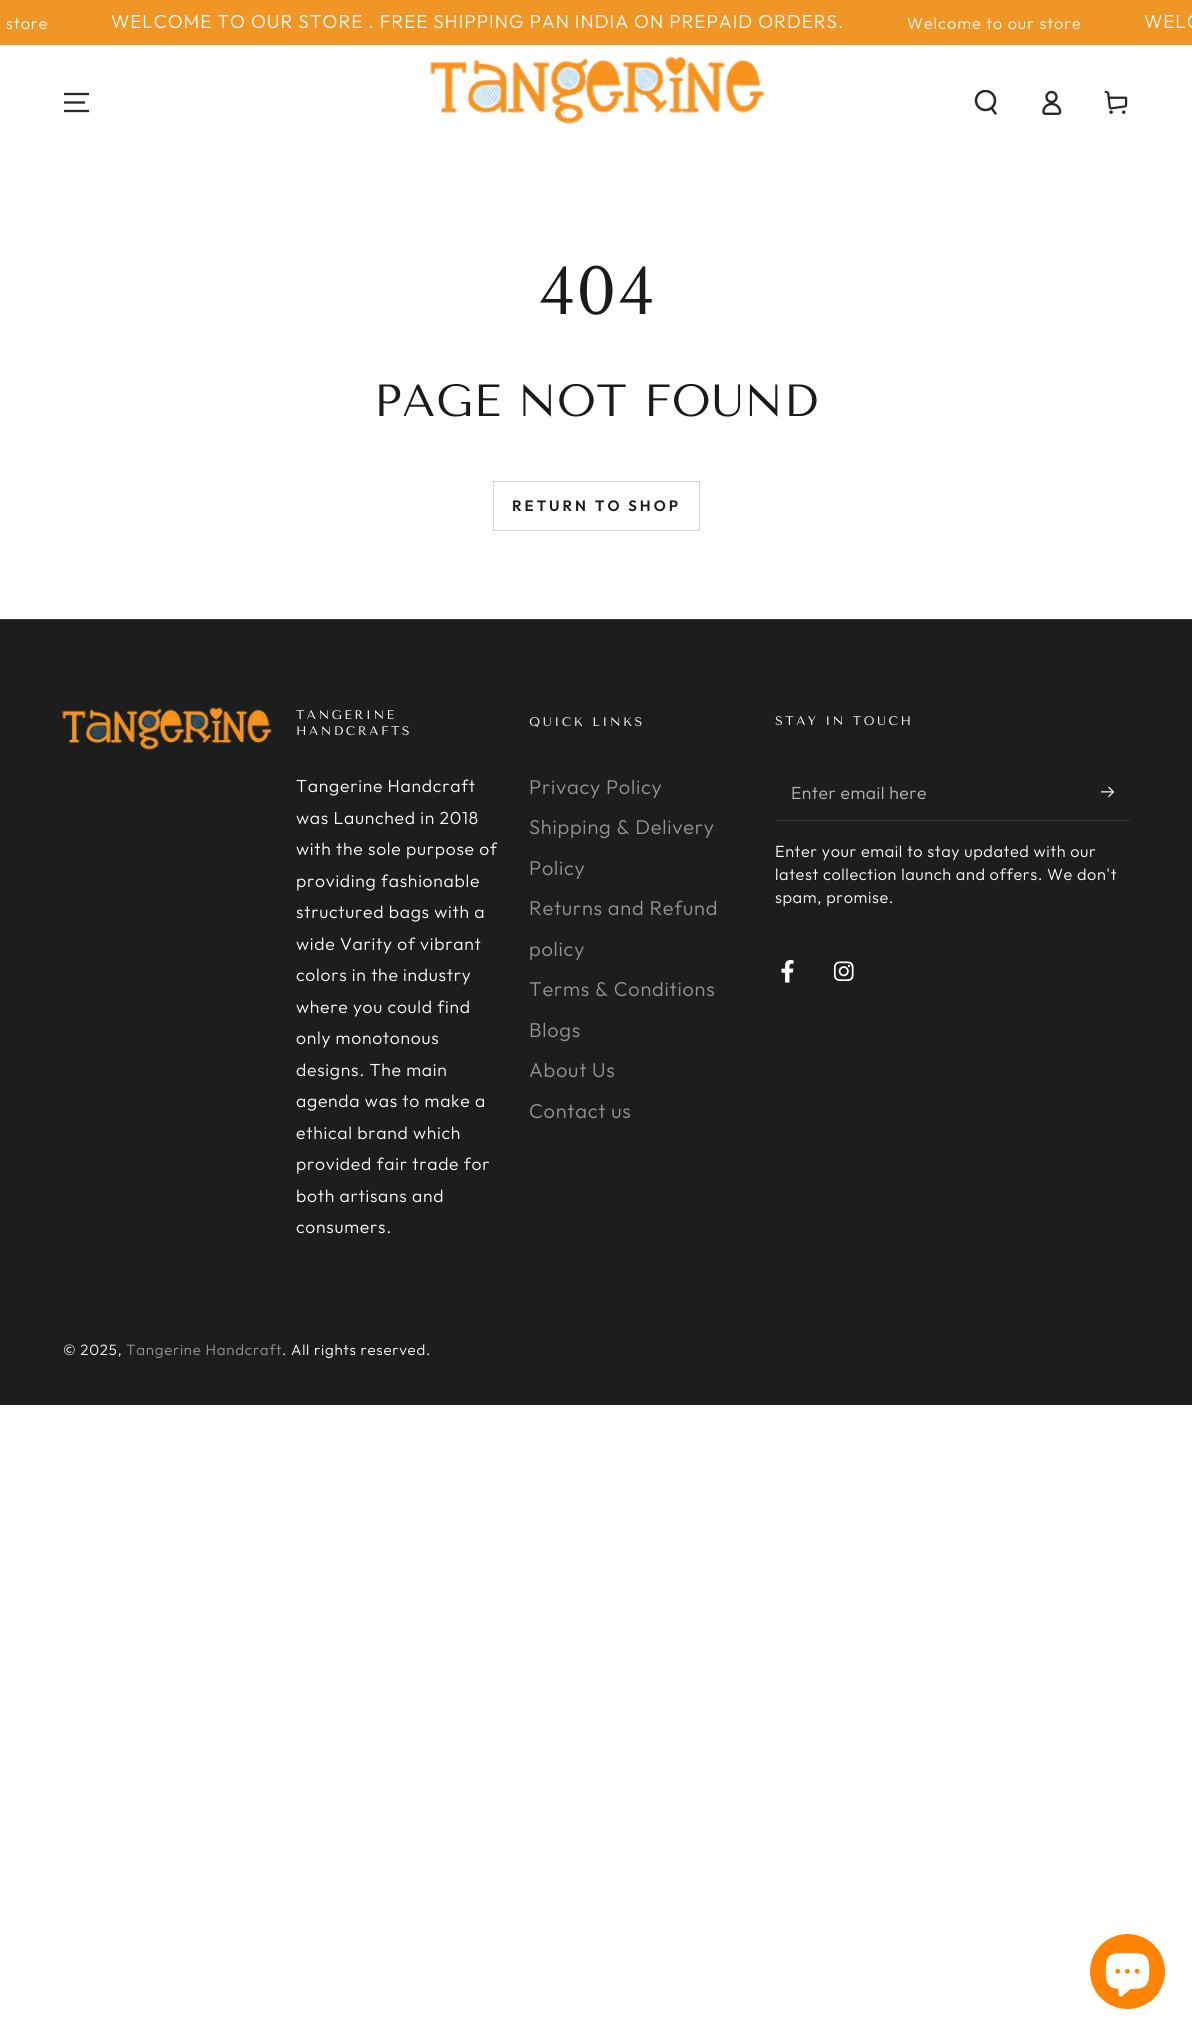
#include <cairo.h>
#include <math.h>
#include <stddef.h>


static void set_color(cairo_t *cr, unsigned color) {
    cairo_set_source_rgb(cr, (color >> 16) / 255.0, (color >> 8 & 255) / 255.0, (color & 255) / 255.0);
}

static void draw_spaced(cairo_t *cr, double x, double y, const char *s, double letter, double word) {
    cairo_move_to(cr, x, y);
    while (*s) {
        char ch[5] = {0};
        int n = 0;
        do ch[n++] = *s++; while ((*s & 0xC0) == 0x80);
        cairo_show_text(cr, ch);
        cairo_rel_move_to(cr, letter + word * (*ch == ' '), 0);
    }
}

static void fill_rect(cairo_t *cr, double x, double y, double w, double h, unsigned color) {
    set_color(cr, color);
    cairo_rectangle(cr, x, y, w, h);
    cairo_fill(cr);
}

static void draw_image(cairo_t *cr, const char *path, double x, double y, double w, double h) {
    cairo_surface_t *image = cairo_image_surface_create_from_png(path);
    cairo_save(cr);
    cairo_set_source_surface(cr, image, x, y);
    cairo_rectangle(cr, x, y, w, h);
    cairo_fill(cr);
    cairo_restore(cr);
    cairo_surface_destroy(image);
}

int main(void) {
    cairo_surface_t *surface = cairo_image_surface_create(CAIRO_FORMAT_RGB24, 1192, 2035);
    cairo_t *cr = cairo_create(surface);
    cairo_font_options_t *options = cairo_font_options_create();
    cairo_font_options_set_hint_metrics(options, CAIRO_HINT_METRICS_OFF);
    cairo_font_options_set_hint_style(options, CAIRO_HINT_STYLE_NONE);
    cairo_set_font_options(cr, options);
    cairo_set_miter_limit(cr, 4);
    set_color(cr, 0xFFFFFF);
    cairo_paint(cr);
    fill_rect(cr, 0, 0, 1192, 45, 0xF09626);
    cairo_select_font_face(cr, "Outfit Light", CAIRO_FONT_SLANT_NORMAL, CAIRO_FONT_WEIGHT_NORMAL);
    cairo_set_font_size(cr, 16.25);
    set_color(cr, 0xFFFFFF);
    draw_spaced(cr, 6, 29, "store", 0.98, 0);
    cairo_set_font_size(cr, 18.75);
    draw_spaced(cr, 111, 28, "WELCOME TO OUR STORE . FREE SHIPPING PAN INDIA ON PREPAID ORDERS.", 0.98, 0);
    cairo_set_font_size(cr, 16.25);
    draw_spaced(cr, 907, 29, "Welcome to our store", 0.98, 0);
    cairo_set_font_size(cr, 18.75);
    draw_spaced(cr, 1144, 28, "WELC", 0.98, 0);
    cairo_new_path(cr);
    cairo_move_to(cr, 64, 111);
    cairo_line_to(cr, 89, 111);
    cairo_move_to(cr, 64, 102.5);
    cairo_line_to(cr, 85, 102.5);
    cairo_move_to(cr, 64, 94);
    cairo_line_to(cr, 89, 94);
    set_color(cr, 0x282828);
    cairo_set_line_width(cr, 2.3);
    cairo_stroke(cr);
    draw_image(cr, "assets/img1.png", 430, 56, 334, 68);
    cairo_save(cr);
    cairo_rectangle(cr, 974, 90, 25, 25);
    cairo_clip(cr);
    cairo_arc(cr, 985.5, 100.5, 9.5, 0, 2 * M_PI);
    cairo_set_line_width(cr, 2.5);
    cairo_stroke(cr);
    cairo_restore(cr);
    cairo_new_path(cr);
    cairo_move_to(cr, 991.5, 108);
    cairo_line_to(cr, 995.5, 113.5);
    cairo_set_line_width(cr, 2.5);
    cairo_set_line_cap(cr, CAIRO_LINE_CAP_ROUND);
    cairo_stroke(cr);
    draw_image(cr, "assets/img2.png", 1042, 90, 20, 25);
    draw_image(cr, "assets/img3.png", 1104, 90, 24, 24);
    cairo_select_font_face(cr, "Tenor Sans", CAIRO_FONT_SLANT_NORMAL, CAIRO_FONT_WEIGHT_NORMAL);
    cairo_set_font_size(cr, 68);
    set_color(cr, 0x1A1B18);
    draw_spaced(cr, 538, 314, "404", 0.75, 0);
    cairo_set_font_size(cr, 45);
    draw_spaced(cr, 374, 416, "PAGE NOT FOUND", 0.75, 0);
    cairo_rectangle(cr, 493.5, 481.5, 206, 49);
    set_color(cr, 0xD2D5D9);
    cairo_set_line_width(cr, 1);
    cairo_set_line_cap(cr, CAIRO_LINE_CAP_BUTT);
    cairo_stroke(cr);
    cairo_select_font_face(cr, "Outfit SemiBold", CAIRO_FONT_SLANT_NORMAL, CAIRO_FONT_WEIGHT_NORMAL);
    cairo_set_font_size(cr, 15);
    set_color(cr, 0x1A1B18);
    draw_spaced(cr, 512, 511, "RETURN TO SHOP", 3, 0);
    fill_rect(cr, 0, 620, 1192, 785, 0x1C1D1D);
    fill_rect(cr, 0, 619, 1192, 1, 0x3B3B3B);
    draw_image(cr, "assets/img4.png", 62, 707, 210, 43);
    cairo_select_font_face(cr, "Tenor Sans", CAIRO_FONT_SLANT_NORMAL, CAIRO_FONT_WEIGHT_NORMAL);
    cairo_set_font_size(cr, 12.5);
    set_color(cr, 0xFFFFFF);
    draw_spaced(cr, 296, 719, "TANGERINE", 2.5, 0);
    draw_spaced(cr, 296, 735, "HANDCRAFTS", 2.5, 0);
    cairo_select_font_face(cr, "Outfit Light", CAIRO_FONT_SLANT_NORMAL, CAIRO_FONT_WEIGHT_NORMAL);
    cairo_set_font_size(cr, 17.5);
    draw_spaced(cr, 296, 792, "Tangerine Handcraft", 0.75, 0);
    draw_spaced(cr, 296, 824, "was Launched in 2018", 0.75, 0);
    draw_spaced(cr, 296, 855, "with the sole purpose of", 0.75, 0);
    draw_spaced(cr, 296, 887, "providing fashionable", 0.75, 0);
    draw_spaced(cr, 296, 918, "structured bags with a", 0.75, 0);
    draw_spaced(cr, 296, 950, "wide Varity of vibrant", 0.75, 0);
    draw_spaced(cr, 296, 981, "colors in the industry", 0.75, 0);
    draw_spaced(cr, 296, 1013, "where you could find", 0.75, 0);
    draw_spaced(cr, 296, 1044, "only monotonous", 0.75, 0);
    draw_spaced(cr, 296, 1076, "designs. The main", 0.75, 0);
    draw_spaced(cr, 296, 1107, "agenda was to make a", 0.75, 0);
    draw_spaced(cr, 296, 1139, "ethical brand which", 0.75, 0);
    draw_spaced(cr, 296, 1170, "provided fair trade for", 0.75, 0);
    draw_spaced(cr, 296, 1202, "both artisans and", 0.75, 0);
    draw_spaced(cr, 296, 1233, "consumers.", 0.75, 0);
    cairo_select_font_face(cr, "Tenor Sans", CAIRO_FONT_SLANT_NORMAL, CAIRO_FONT_WEIGHT_NORMAL);
    cairo_set_font_size(cr, 12.5);
    draw_spaced(cr, 529, 726, "QUICK LINKS", 2.5, 0);
    cairo_select_font_face(cr, "Outfit Light", CAIRO_FONT_SLANT_NORMAL, CAIRO_FONT_WEIGHT_NORMAL);
    cairo_set_font_size(cr, 20);
    set_color(cr, 0x969696);
    draw_spaced(cr, 529, 794, "Privacy Policy", 0.75, 0);
    draw_spaced(cr, 529, 834, "Shipping & Delivery", 0.75, 0);
    draw_spaced(cr, 529, 875, "Policy", 0.75, 0);
    draw_spaced(cr, 529, 915, "Returns and Refund", 0.75, 0);
    draw_spaced(cr, 529, 956, "policy", 0.75, 0);
    draw_spaced(cr, 529, 996, "Terms & Conditions", 0.75, 0);
    draw_spaced(cr, 529, 1037, "Blogs", 0.75, 0);
    draw_spaced(cr, 529, 1077, "About Us", 0.75, 0);
    draw_spaced(cr, 529, 1118, "Contact us", 0.75, 0);
    cairo_select_font_face(cr, "Tenor Sans", CAIRO_FONT_SLANT_NORMAL, CAIRO_FONT_WEIGHT_NORMAL);
    cairo_set_font_size(cr, 12.5);
    set_color(cr, 0xFFFFFF);
    draw_spaced(cr, 775, 725, "STAY IN TOUCH", 2.5, 0);
    set_color(cr, 0x3B3B3B);
    cairo_new_path(cr);
    cairo_move_to(cr, 1130, 821);
    cairo_line_to(cr, 775, 821);
    cairo_line_to(cr, 776, 820);
    cairo_line_to(cr, 1129, 820);
    cairo_close_path(cr);
    cairo_fill(cr);
    cairo_select_font_face(cr, "Outfit Light", CAIRO_FONT_SLANT_NORMAL, CAIRO_FONT_WEIGHT_NORMAL);
    cairo_set_font_size(cr, 17.5);
    set_color(cr, 0xBBBBBB);
    draw_spaced(cr, 791, 799, "Enter email here", 0.5, 0);
    draw_image(cr, "assets/img5.png", 1101, 786, 13, 11);
    cairo_set_font_size(cr, 16.25);
    set_color(cr, 0xFFFFFF);
    draw_spaced(cr, 775, 857, "Enter your email to stay updated with our", 0.6, 0);
    draw_spaced(cr, 775, 880, "latest collection launch and offers. We don't", 0.6, 0);
    draw_spaced(cr, 775, 903, "spam, promise.", 0.6, 0);
    draw_image(cr, "assets/img6.png", 781, 960, 13, 23);
    draw_image(cr, "assets/img7.png", 833, 961, 21, 20);
    cairo_set_font_size(cr, 15);
    draw_spaced(cr, 63, 1355, "© 2025,", 0.75, 0);
    set_color(cr, 0x969696);
    draw_spaced(cr, 126, 1355, "Tangerine Handcraft", 0.75, 0);
    set_color(cr, 0xFFFFFF);
    draw_spaced(cr, 282, 1355, ". All rights reserved.", 0.75, 0);
    set_color(cr, 0xFF8304);
    cairo_new_path(cr);
    cairo_arc(cr, 1127.5, 1971.5, 37.5, 0, 2 * M_PI);
    cairo_fill(cr);
    draw_image(cr, "assets/img8.png", 1105, 1953, 45, 44);
    cairo_surface_write_to_png(surface, "output.png");
    cairo_font_options_destroy(options);
    cairo_destroy(cr);
    cairo_surface_destroy(surface);
    return 0;
}
